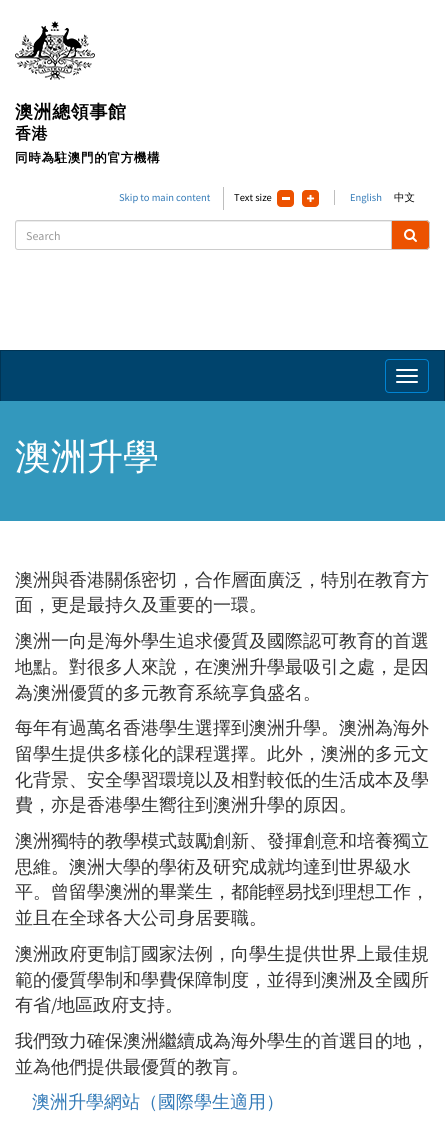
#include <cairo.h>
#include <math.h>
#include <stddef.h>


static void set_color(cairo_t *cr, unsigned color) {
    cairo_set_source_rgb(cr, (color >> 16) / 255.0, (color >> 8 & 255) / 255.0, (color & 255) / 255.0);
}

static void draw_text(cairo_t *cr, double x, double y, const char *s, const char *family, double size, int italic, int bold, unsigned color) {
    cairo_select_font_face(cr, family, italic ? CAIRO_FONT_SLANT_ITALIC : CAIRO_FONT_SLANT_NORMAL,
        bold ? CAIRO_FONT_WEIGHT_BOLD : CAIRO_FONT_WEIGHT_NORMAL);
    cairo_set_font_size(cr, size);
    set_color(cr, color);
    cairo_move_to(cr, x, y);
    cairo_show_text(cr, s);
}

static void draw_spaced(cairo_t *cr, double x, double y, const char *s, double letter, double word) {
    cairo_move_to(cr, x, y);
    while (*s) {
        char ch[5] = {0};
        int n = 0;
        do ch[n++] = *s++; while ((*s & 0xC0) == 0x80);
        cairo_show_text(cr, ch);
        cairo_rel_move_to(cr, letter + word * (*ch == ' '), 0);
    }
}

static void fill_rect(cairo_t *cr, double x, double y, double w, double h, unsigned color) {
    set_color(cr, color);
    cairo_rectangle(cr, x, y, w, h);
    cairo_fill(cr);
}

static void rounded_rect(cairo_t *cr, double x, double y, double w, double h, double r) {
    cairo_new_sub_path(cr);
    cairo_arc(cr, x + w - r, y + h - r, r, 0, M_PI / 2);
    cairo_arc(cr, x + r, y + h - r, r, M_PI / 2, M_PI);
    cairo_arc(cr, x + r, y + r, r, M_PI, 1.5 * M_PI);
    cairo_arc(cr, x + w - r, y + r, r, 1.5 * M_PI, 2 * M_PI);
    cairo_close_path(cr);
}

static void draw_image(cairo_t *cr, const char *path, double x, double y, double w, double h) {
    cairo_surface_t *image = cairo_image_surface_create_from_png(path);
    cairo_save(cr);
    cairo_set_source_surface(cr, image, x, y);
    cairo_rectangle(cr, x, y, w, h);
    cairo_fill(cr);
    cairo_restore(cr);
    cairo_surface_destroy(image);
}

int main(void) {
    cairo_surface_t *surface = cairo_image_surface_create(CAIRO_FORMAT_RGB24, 445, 1133);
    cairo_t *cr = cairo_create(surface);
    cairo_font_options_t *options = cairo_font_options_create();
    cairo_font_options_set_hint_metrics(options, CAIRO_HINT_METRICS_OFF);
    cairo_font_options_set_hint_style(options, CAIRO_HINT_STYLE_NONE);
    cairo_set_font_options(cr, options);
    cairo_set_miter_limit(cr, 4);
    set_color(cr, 0xFFFFFF);
    cairo_paint(cr);
    draw_image(cr, "assets/img1.png", 15, 21, 80, 59);
    cairo_select_font_face(cr, "WenQuanYi Zen Hei", CAIRO_FONT_SLANT_NORMAL, CAIRO_FONT_WEIGHT_BOLD);
    cairo_set_font_size(cr, 18);
    set_color(cr, 0x000000);
    draw_spaced(cr, 15, 118, "澳洲總領事館", 0.6, 0);
    cairo_set_font_size(cr, 16);
    draw_spaced(cr, 15, 139, "香港", 0.6, 0);
    cairo_set_font_size(cr, 12.6);
    draw_spaced(cr, 15, 162, "同時為駐澳門的官方機構", 0.6, 0);
    draw_text(cr, 119, 201, "Skip to main content", "Source Sans Pro", 10.5, 0, 0, 0x337AB7);
    fill_rect(cr, 223, 187, 1, 23, 0xBEBEBE);
    draw_text(cr, 234, 201, "Text size", "Source Sans Pro", 10.5, 0, 0, 0x000000);
    set_color(cr, 0xEC5200);
    rounded_rect(cr, 277, 190, 17, 17, 4);
    cairo_fill(cr);
    fill_rect(cr, 282, 197, 8, 3, 0xFFFFFF);
    set_color(cr, 0xEC5200);
    rounded_rect(cr, 302, 190, 17, 17, 4);
    cairo_fill(cr);
    draw_image(cr, "assets/img2.png", 307, 194, 8, 8);
    fill_rect(cr, 334, 190, 1, 15, 0xBEBEBE);
    draw_text(cr, 350, 201, "English", "Source Sans Pro", 10.5, 0, 0, 0x337AB7);
    draw_text(cr, 394, 201, "中文", "WenQuanYi Zen Hei Medium", 10.5, 0, 0, 0x000000);
    set_color(cr, 0xECECEC);
    cairo_new_path(cr);
    cairo_move_to(cr, 18, 222);
    cairo_line_to(cr, 391, 222);
    cairo_line_to(cr, 391, 221);
    cairo_line_to(cr, 18, 221);
    cairo_curve_to(cr, 16, 221, 16, 223, 16, 224);
    cairo_curve_to(cr, 16, 223, 17, 222, 18, 222);
    cairo_close_path(cr);
    cairo_fill(cr);
    cairo_new_path(cr);
    cairo_move_to(cr, 18, 220.5);
    cairo_line_to(cr, 391.5, 220.5);
    cairo_line_to(cr, 391.5, 249.5);
    cairo_line_to(cr, 18, 249.5);
    cairo_curve_to(cr, 16.5, 249.5, 15.5, 248.5, 15.5, 247);
    cairo_line_to(cr, 15.5, 223);
    cairo_curve_to(cr, 15.5, 221.5, 16.5, 220.5, 18, 220.5);
    cairo_close_path(cr);
    set_color(cr, 0xCCCCCC);
    cairo_set_line_width(cr, 1);
    cairo_stroke(cr);
    draw_text(cr, 26, 240, "Search", "Source Sans Pro", 12, 0, 0, 0x999999);
    set_color(cr, 0xEC5200);
    cairo_new_path(cr);
    cairo_move_to(cr, 392, 220);
    cairo_line_to(cr, 426, 220);
    cairo_curve_to(cr, 428, 220, 430, 222, 430, 224);
    cairo_line_to(cr, 430, 246);
    cairo_curve_to(cr, 430, 248, 428, 250, 426, 250);
    cairo_line_to(cr, 392, 250);
    cairo_close_path(cr);
    cairo_fill(cr);
    set_color(cr, 0xCCCCCC);
    cairo_set_fill_rule(cr, CAIRO_FILL_RULE_EVEN_ODD);
    cairo_new_path(cr);
    cairo_move_to(cr, 392, 220);
    cairo_line_to(cr, 426, 220);
    cairo_curve_to(cr, 428, 220, 430, 222, 430, 224);
    cairo_line_to(cr, 430, 246);
    cairo_curve_to(cr, 430, 248, 428, 250, 426, 250);
    cairo_line_to(cr, 392, 250);
    cairo_close_path(cr);
    cairo_move_to(cr, 392, 221);
    cairo_line_to(cr, 426, 221);
    cairo_curve_to(cr, 427.5, 221, 429, 222.5, 429, 224);
    cairo_line_to(cr, 429, 246);
    cairo_curve_to(cr, 429, 247.5, 427.5, 249, 426, 249);
    cairo_line_to(cr, 392, 249);
    cairo_close_path(cr);
    cairo_fill(cr);
    draw_image(cr, "assets/img3.png", 404, 229, 13, 13);
    fill_rect(cr, 1, 351, 443, 50, 0x00446D);
    fill_rect(cr, 0, 350, 445, 1, 0x003454);
    fill_rect(cr, 444, 350, 1, 51, 0x003454);
    fill_rect(cr, 0, 350, 1, 51, 0x003454);
    rounded_rect(cr, 385.5, 359.5, 43, 33, 3.5);
    set_color(cr, 0x0084D3);
    cairo_stroke(cr);
    set_color(cr, 0xFFFFFF);
    rounded_rect(cr, 396, 369, 22, 2, 1);
    cairo_fill(cr);
    rounded_rect(cr, 396, 375, 22, 2, 1);
    cairo_fill(cr);
    rounded_rect(cr, 396, 381, 22, 2, 1);
    cairo_fill(cr);
    fill_rect(cr, 0, 401, 445, 120, 0x3398BD);
    draw_text(cr, 15, 469, "澳洲升學", "WenQuanYi Zen Hei Medium", 36, 0, 0, 0xFFFFFF);
    draw_text(cr, 15, 586, "澳洲與香港關係密切，合作層面廣泛，特別在教育方", "WenQuanYi Zen Hei Medium", 18, 0, 0, 0x333333);
    draw_text(cr, 15, 611, "面，更是最持久及重要的一環。", "WenQuanYi Zen Hei Medium", 18, 0, 0, 0x333333);
    draw_text(cr, 15, 647, "澳洲一向是海外學生追求優質及國際認可教育的首選", "WenQuanYi Zen Hei Medium", 18, 0, 0, 0x333333);
    draw_text(cr, 15, 673, "地點。對很多人來說，在澳洲升學最吸引之處，是因", "WenQuanYi Zen Hei Medium", 18, 0, 0, 0x333333);
    draw_text(cr, 15, 699, "為澳洲優質的多元教育系統享負盛名。", "WenQuanYi Zen Hei Medium", 18, 0, 0, 0x333333);
    draw_text(cr, 15, 734, "每年有過萬名香港學生選擇到澳洲升學。澳洲為海外", "WenQuanYi Zen Hei Medium", 18, 0, 0, 0x333333);
    draw_text(cr, 15, 760, "留學生提供多樣化的課程選擇。此外，澳洲的多元文", "WenQuanYi Zen Hei Medium", 18, 0, 0, 0x333333);
    draw_text(cr, 15, 786, "化背景、安全學習環境以及相對較低的生活成本及學", "WenQuanYi Zen Hei Medium", 18, 0, 0, 0x333333);
    draw_text(cr, 15, 811, "費，亦是香港學生嚮往到澳洲升學的原因。", "WenQuanYi Zen Hei Medium", 18, 0, 0, 0x333333);
    draw_text(cr, 15, 847, "澳洲獨特的教學模式鼓勵創新、發揮創意和培養獨立", "WenQuanYi Zen Hei Medium", 18, 0, 0, 0x333333);
    draw_text(cr, 15, 873, "思維。澳洲大學的學術及研究成就均達到世界級水", "WenQuanYi Zen Hei Medium", 18, 0, 0, 0x333333);
    draw_text(cr, 15, 898, "平。曾留學澳洲的畢業生，都能輕易找到理想工作，", "WenQuanYi Zen Hei Medium", 18, 0, 0, 0x333333);
    draw_text(cr, 15, 924, "並且在全球各大公司身居要職。", "WenQuanYi Zen Hei Medium", 18, 0, 0, 0x333333);
    draw_text(cr, 15, 960, "澳洲政府更制訂國家法例，向學生提供世界上最佳規", "WenQuanYi Zen Hei Medium", 18, 0, 0, 0x333333);
    draw_text(cr, 15, 986, "範的優質學制和學費保障制度，並得到澳洲及全國所", "WenQuanYi Zen Hei Medium", 18, 0, 0, 0x333333);
    draw_text(cr, 15, 1011, "有省", "WenQuanYi Zen Hei Medium", 18, 0, 0, 0x333333);
    draw_text(cr, 51, 1011, "/", "Source Sans Pro", 18, 0, 0, 0x333333);
    draw_text(cr, 57, 1011, "地區政府支持。", "WenQuanYi Zen Hei Medium", 18, 0, 0, 0x333333);
    draw_text(cr, 15, 1047, "我們致力確保澳洲繼續成為海外學生的首選目的地，", "WenQuanYi Zen Hei Medium", 18, 0, 0, 0x333333);
    draw_text(cr, 15, 1073, "並為他們提供最優質的教肓。", "WenQuanYi Zen Hei Medium", 18, 0, 0, 0x333333);
    draw_text(cr, 32, 1108, "澳洲升學網站（國際學生適用）", "WenQuanYi Zen Hei Medium", 18, 0, 0, 0x337AB7);
    cairo_surface_write_to_png(surface, "output.png");
    cairo_font_options_destroy(options);
    cairo_destroy(cr);
    cairo_surface_destroy(surface);
    return 0;
}
